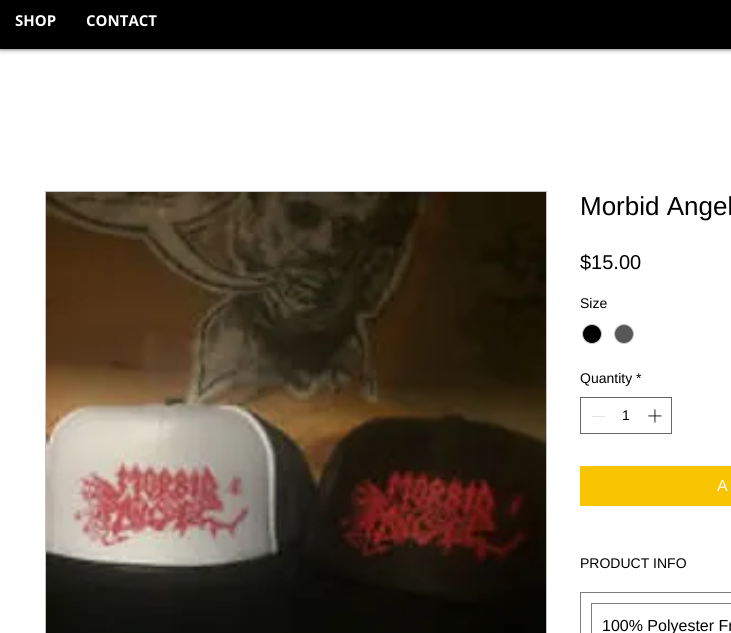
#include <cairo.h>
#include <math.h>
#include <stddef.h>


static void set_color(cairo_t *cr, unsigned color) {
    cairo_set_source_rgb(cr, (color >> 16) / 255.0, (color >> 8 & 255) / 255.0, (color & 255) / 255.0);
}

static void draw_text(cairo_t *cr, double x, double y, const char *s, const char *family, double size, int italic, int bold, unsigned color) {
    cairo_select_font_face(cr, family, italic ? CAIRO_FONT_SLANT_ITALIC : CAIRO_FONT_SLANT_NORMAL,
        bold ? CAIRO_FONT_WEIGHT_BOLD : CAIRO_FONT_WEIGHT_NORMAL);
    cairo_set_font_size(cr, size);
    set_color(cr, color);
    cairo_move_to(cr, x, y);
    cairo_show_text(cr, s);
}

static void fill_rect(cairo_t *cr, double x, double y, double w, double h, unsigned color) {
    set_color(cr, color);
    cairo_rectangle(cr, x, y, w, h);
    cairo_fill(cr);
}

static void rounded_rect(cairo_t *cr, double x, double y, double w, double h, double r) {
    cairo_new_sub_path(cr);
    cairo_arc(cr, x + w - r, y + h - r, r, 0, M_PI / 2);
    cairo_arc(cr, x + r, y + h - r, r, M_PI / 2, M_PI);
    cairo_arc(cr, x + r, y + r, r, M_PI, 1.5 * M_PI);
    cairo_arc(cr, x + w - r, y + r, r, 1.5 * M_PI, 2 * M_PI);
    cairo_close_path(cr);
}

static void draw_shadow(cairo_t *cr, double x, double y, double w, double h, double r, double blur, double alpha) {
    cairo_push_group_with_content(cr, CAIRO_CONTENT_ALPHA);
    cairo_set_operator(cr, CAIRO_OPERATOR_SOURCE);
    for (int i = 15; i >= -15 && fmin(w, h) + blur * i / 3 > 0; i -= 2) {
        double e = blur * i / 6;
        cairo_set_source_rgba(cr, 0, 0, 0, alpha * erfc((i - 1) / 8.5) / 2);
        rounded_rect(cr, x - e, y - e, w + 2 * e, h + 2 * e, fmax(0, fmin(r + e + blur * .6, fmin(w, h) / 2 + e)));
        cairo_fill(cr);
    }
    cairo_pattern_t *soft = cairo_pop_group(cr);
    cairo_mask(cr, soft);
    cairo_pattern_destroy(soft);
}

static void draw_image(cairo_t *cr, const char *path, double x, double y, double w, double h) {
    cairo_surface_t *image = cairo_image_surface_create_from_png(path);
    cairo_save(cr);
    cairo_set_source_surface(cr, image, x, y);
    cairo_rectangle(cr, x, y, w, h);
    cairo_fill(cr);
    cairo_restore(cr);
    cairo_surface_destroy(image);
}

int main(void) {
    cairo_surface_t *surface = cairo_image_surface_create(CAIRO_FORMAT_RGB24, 731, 633);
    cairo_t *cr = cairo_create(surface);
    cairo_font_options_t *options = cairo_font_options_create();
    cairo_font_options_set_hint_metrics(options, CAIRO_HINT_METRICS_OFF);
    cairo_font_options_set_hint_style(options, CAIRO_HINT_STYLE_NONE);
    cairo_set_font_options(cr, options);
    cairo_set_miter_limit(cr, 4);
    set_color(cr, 0xFFFFFF);
    cairo_paint(cr);
    set_color(cr, 0x000000);
    draw_shadow(cr, 0, 0, 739, 49, 0, 2.5, 0.7);
    fill_rect(cr, 0, 0, 731, 49, 0x000000);
    draw_text(cr, 15, 26, "SHOP", "Open Sans", 15, 0, 1, 0xFFFFFF);
    draw_text(cr, 86, 26, "CONTACT", "Open Sans", 15, 0, 1, 0xFFFFFF);
    cairo_rectangle(cr, 45.5, 191.5, 501, 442);
    set_color(cr, 0xC0C0C0);
    cairo_set_line_width(cr, 1);
    cairo_stroke(cr);
    draw_image(cr, "assets/img1.png", 46, 192, 500, 441);
    draw_text(cr, 580, 215, "Morbid Angel", "Liberation Sans", 26, 0, 0, 0x000000);
    draw_text(cr, 580, 269, "$15.00", "Liberation Sans", 20, 0, 0, 0x000000);
    draw_text(cr, 580, 308, "Size", "Liberation Sans", 14, 0, 0, 0x000000);
    cairo_new_path(cr);
    cairo_arc(cr, 592, 334, 9.5, 0, 2 * M_PI);
    cairo_fill_preserve(cr);
    set_color(cr, 0xC9C9C9);
    cairo_stroke(cr);
    set_color(cr, 0x575757);
    cairo_arc(cr, 624, 334, 9.5, 0, 2 * M_PI);
    cairo_fill_preserve(cr);
    set_color(cr, 0xC9C9C9);
    cairo_stroke(cr);
    draw_text(cr, 580, 383, "Quantity *", "Liberation Sans", 14, 0, 0, 0x000000);
    cairo_rectangle(cr, 580.5, 397.5, 91, 36);
    set_color(cr, 0x666666);
    cairo_stroke(cr);
    fill_rect(cr, 592, 416, 13, 1, 0xE3E3E3);
    draw_text(cr, 622, 420, "1", "Liberation Sans", 14, 0, 0, 0x000000);
    draw_image(cr, "assets/img2.png", 648, 409, 14, 14);
    fill_rect(cr, 580, 466, 151, 40, 0xF9C402);
    draw_text(cr, 717, 491, "A", "Liberation Sans", 16, 0, 0, 0xFFFFFF);
    draw_text(cr, 580, 568, "PRODUCT INFO", "Liberation Sans", 14, 0, 0, 0x000000);
    fill_rect(cr, 580, 592, 151, 1, 0x7D7D7D);
    fill_rect(cr, 580, 592, 1, 41, 0x7D7D7D);
    fill_rect(cr, 591, 603, 140, 1, 0x7D7D7D);
    fill_rect(cr, 591, 603, 1, 30, 0x7D7D7D);
    draw_text(cr, 602, 631, "100% Polyester Fr", "Liberation Sans", 16, 0, 0, 0x000000);
    cairo_surface_write_to_png(surface, "output.png");
    cairo_font_options_destroy(options);
    cairo_destroy(cr);
    cairo_surface_destroy(surface);
    return 0;
}
